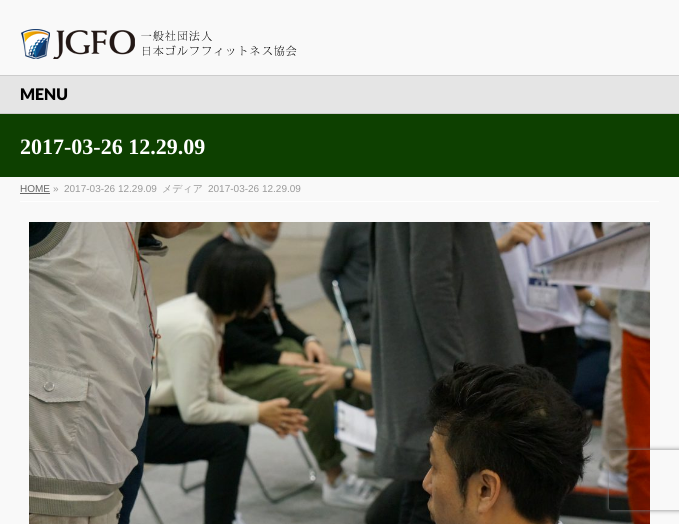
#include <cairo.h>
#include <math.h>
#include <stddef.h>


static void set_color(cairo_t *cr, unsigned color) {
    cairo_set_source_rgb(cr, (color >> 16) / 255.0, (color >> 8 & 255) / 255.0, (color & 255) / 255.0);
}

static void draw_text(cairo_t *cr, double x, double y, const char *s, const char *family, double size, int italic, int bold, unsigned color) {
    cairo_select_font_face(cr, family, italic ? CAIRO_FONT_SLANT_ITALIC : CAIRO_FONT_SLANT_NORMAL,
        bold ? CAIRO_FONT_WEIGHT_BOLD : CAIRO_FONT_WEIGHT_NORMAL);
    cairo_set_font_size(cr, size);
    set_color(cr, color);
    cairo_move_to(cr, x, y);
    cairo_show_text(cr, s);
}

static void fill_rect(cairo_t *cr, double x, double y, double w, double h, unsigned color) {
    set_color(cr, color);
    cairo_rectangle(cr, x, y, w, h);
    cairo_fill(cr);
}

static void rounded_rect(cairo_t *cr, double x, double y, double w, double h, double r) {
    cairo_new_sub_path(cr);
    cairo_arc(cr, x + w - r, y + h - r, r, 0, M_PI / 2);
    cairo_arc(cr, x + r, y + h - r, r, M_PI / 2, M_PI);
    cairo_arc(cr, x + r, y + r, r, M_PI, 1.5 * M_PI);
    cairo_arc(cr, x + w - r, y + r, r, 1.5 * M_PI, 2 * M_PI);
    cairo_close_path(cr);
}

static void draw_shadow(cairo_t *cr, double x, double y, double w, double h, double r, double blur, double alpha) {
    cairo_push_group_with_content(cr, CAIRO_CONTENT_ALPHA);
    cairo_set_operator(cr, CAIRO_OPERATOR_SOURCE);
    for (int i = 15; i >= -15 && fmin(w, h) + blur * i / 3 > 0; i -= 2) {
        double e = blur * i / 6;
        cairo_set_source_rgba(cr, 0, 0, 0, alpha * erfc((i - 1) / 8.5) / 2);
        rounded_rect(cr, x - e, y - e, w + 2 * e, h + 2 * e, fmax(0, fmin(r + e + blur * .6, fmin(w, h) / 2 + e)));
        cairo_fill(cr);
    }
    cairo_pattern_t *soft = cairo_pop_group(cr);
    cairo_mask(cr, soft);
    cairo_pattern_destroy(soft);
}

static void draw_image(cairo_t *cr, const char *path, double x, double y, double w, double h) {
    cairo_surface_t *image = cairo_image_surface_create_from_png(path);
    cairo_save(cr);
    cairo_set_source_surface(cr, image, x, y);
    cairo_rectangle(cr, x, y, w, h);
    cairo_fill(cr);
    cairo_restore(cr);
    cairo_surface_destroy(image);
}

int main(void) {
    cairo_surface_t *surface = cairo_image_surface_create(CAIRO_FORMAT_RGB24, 679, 524);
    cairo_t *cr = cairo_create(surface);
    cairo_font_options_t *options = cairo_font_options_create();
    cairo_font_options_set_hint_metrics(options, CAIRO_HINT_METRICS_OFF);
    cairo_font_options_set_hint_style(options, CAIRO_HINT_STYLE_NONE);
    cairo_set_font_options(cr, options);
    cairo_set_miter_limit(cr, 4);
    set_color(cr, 0xF9F9F9);
    cairo_paint(cr);
    draw_image(cr, "assets/img1.png", 21, 29, 276, 30);
    fill_rect(cr, 0, 75, 679, 1, 0xCCCCCC);
    fill_rect(cr, 0, 113, 679, 1, 0xCCCCCC);
    fill_rect(cr, 0, 76, 679, 37, 0xE5E5E5);
    draw_text(cr, 20, 100, "MENU", "Lato Black", 16, 0, 0, 0x000000);
    fill_rect(cr, 0, 114, 679, 63, 0x0D4000);
    draw_text(cr, 20, 154, "2017-03-26 12.29.09", "Liberation Serif", 22, 0, 1, 0xFFFFFF);
    fill_rect(cr, 20, 201, 639, 1, 0xFFFFFF);
    draw_text(cr, 20, 192, "HOME", "Liberation Sans", 10, 0, 0, 0x666666);
    fill_rect(cr, 20, 193, 30, 1, 0x666666);
    draw_text(cr, 53, 192, "»", "Liberation Sans", 10, 0, 0, 0x999999);
    draw_text(cr, 64, 192, "2017-03-26 12.29.09", "Liberation Sans", 10, 0, 0, 0x999999);
    draw_text(cr, 162, 192, "メディア", "WenQuanYi Zen Hei Medium", 10, 0, 0, 0x999999);
    draw_text(cr, 208, 192, "2017-03-26 12.29.09", "Liberation Sans", 10, 0, 0, 0x999999);
    draw_image(cr, "assets/img2.png", 29, 222, 621, 302);
    cairo_save(cr);
    cairo_set_fill_rule(cr, CAIRO_FILL_RULE_EVEN_ODD);
    cairo_new_path(cr);
    cairo_move_to(cr, 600, 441);
    cairo_line_to(cr, 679, 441);
    cairo_line_to(cr, 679, 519);
    cairo_line_to(cr, 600, 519);
    cairo_close_path(cr);
    cairo_move_to(cr, 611, 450);
    cairo_line_to(cr, 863, 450);
    cairo_curve_to(cr, 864, 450, 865, 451, 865, 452);
    cairo_line_to(cr, 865, 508);
    cairo_curve_to(cr, 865, 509, 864, 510, 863, 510);
    cairo_line_to(cr, 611, 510);
    cairo_curve_to(cr, 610, 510, 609, 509, 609, 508);
    cairo_line_to(cr, 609, 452);
    cairo_curve_to(cr, 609, 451, 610, 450, 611, 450);
    cairo_close_path(cr);
    cairo_clip(cr);
    set_color(cr, 0x808080);
    draw_shadow(cr, 609, 450, 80, 60, 2, 2.5, 1);
    cairo_restore(cr);
    cairo_surface_write_to_png(surface, "output.png");
    cairo_font_options_destroy(options);
    cairo_destroy(cr);
    cairo_surface_destroy(surface);
    return 0;
}
